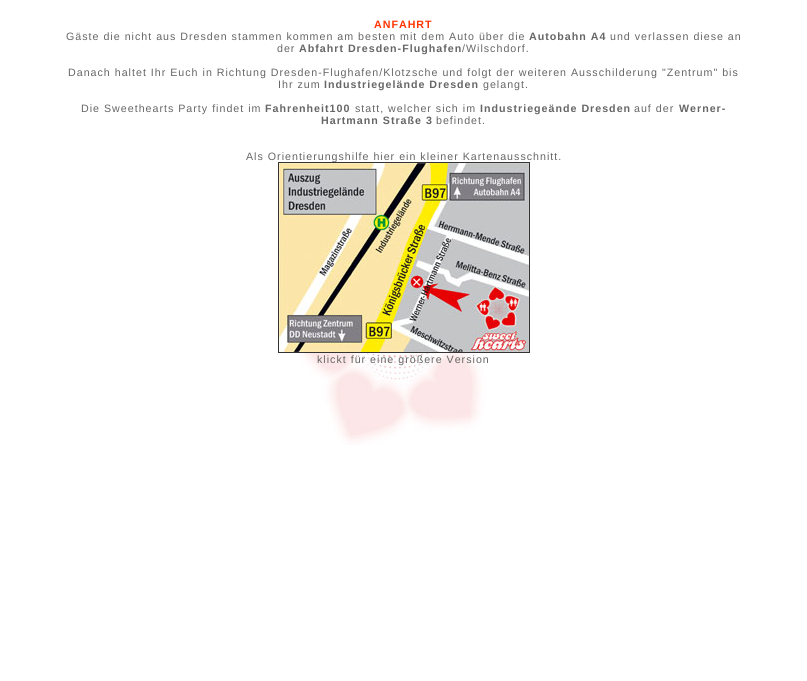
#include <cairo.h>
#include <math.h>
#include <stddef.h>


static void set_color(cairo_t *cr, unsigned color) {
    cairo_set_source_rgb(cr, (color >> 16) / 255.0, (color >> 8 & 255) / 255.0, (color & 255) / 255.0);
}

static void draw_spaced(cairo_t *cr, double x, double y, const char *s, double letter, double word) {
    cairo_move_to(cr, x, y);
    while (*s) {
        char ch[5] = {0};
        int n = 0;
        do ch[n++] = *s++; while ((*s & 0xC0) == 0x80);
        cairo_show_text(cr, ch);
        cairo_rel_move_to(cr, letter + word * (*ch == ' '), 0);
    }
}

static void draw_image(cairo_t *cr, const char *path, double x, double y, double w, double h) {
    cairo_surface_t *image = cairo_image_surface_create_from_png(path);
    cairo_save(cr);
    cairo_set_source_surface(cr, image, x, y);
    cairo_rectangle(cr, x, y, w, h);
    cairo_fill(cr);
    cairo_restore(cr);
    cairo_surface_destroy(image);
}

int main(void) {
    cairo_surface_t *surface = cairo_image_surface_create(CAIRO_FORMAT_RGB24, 807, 681);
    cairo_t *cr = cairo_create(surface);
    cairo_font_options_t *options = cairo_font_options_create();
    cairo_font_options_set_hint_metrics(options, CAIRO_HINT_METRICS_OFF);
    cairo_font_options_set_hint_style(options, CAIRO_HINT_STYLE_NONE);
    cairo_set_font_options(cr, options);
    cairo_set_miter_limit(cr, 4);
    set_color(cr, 0xFFFFFF);
    cairo_paint(cr);
    draw_image(cr, "assets/img1.png", 286, 353, 212, 92);
    cairo_select_font_face(cr, "Liberation Sans", CAIRO_FONT_SLANT_NORMAL, CAIRO_FONT_WEIGHT_BOLD);
    cairo_set_font_size(cr, 10.67);
    set_color(cr, 0xFF3300);
    draw_spaced(cr, 374, 28, "ANFAHRT", 1, 0);
    cairo_select_font_face(cr, "Liberation Sans", CAIRO_FONT_SLANT_NORMAL, CAIRO_FONT_WEIGHT_NORMAL);
    set_color(cr, 0x666666);
    draw_spaced(cr, 66, 40, "Gäste die nicht aus Dresden stammen kommen am besten mit dem Auto über die", 1, 0);
    cairo_select_font_face(cr, "Liberation Sans", CAIRO_FONT_SLANT_NORMAL, CAIRO_FONT_WEIGHT_BOLD);
    draw_spaced(cr, 529, 40, "Autobahn A4", 1, 0);
    cairo_select_font_face(cr, "Liberation Sans", CAIRO_FONT_SLANT_NORMAL, CAIRO_FONT_WEIGHT_NORMAL);
    draw_spaced(cr, 610, 40, "und verlassen diese an", 1, 0);
    draw_spaced(cr, 277, 52, "der", 1, 0);
    cairo_select_font_face(cr, "Liberation Sans", CAIRO_FONT_SLANT_NORMAL, CAIRO_FONT_WEIGHT_BOLD);
    draw_spaced(cr, 299, 52, "Abfahrt Dresden-Flughafen", 1, 0);
    cairo_select_font_face(cr, "Liberation Sans", CAIRO_FONT_SLANT_NORMAL, CAIRO_FONT_WEIGHT_NORMAL);
    draw_spaced(cr, 462, 52, "/Wilschdorf.", 1, 0);
    draw_spaced(cr, 68, 76, "Danach haltet Ihr Euch in Richtung Dresden-Flughafen/Klotzsche und folgt der weiteren Ausschilderung \"Zentrum\" bis", 1, 0);
    draw_spaced(cr, 278, 88, "Ihr zum", 1, 0);
    cairo_select_font_face(cr, "Liberation Sans", CAIRO_FONT_SLANT_NORMAL, CAIRO_FONT_WEIGHT_BOLD);
    draw_spaced(cr, 324, 88, "Industriegelände Dresden", 1, 0);
    cairo_select_font_face(cr, "Liberation Sans", CAIRO_FONT_SLANT_NORMAL, CAIRO_FONT_WEIGHT_NORMAL);
    draw_spaced(cr, 483, 88, "gelangt.", 1, 0);
    draw_spaced(cr, 81, 112, "Die Sweethearts Party findet im", 1, 0);
    cairo_select_font_face(cr, "Liberation Sans", CAIRO_FONT_SLANT_NORMAL, CAIRO_FONT_WEIGHT_BOLD);
    draw_spaced(cr, 265, 112, "Fahrenheit100", 1, 0);
    cairo_select_font_face(cr, "Liberation Sans", CAIRO_FONT_SLANT_NORMAL, CAIRO_FONT_WEIGHT_NORMAL);
    draw_spaced(cr, 355, 112, "statt, welcher sich im", 1, 0);
    cairo_select_font_face(cr, "Liberation Sans", CAIRO_FONT_SLANT_NORMAL, CAIRO_FONT_WEIGHT_BOLD);
    draw_spaced(cr, 480, 112, "Industriegeände Dresden", 1, 0);
    cairo_select_font_face(cr, "Liberation Sans", CAIRO_FONT_SLANT_NORMAL, CAIRO_FONT_WEIGHT_NORMAL);
    draw_spaced(cr, 634, 112, "auf der", 1, 0);
    cairo_select_font_face(cr, "Liberation Sans", CAIRO_FONT_SLANT_NORMAL, CAIRO_FONT_WEIGHT_BOLD);
    draw_spaced(cr, 679, 112, "Werner-", 1, 0);
    draw_spaced(cr, 321, 124, "Hartmann Straße 3", 1, 0);
    cairo_select_font_face(cr, "Liberation Sans", CAIRO_FONT_SLANT_NORMAL, CAIRO_FONT_WEIGHT_NORMAL);
    draw_spaced(cr, 436, 124, "befindet.", 1, 0);
    draw_spaced(cr, 246, 160, "Als Orientierungshilfe hier ein kleiner Kartenausschnitt.", 1, 0);
    cairo_rectangle(cr, 278.5, 162.5, 251, 190);
    set_color(cr, 0x333333);
    cairo_set_line_width(cr, 1);
    cairo_stroke(cr);
    draw_image(cr, "assets/img2.png", 279, 163, 250, 189);
    set_color(cr, 0x666666);
    draw_spaced(cr, 317, 363, "klickt für eine größere Version", 1, 0);
    cairo_surface_write_to_png(surface, "output.png");
    cairo_font_options_destroy(options);
    cairo_destroy(cr);
    cairo_surface_destroy(surface);
    return 0;
}
